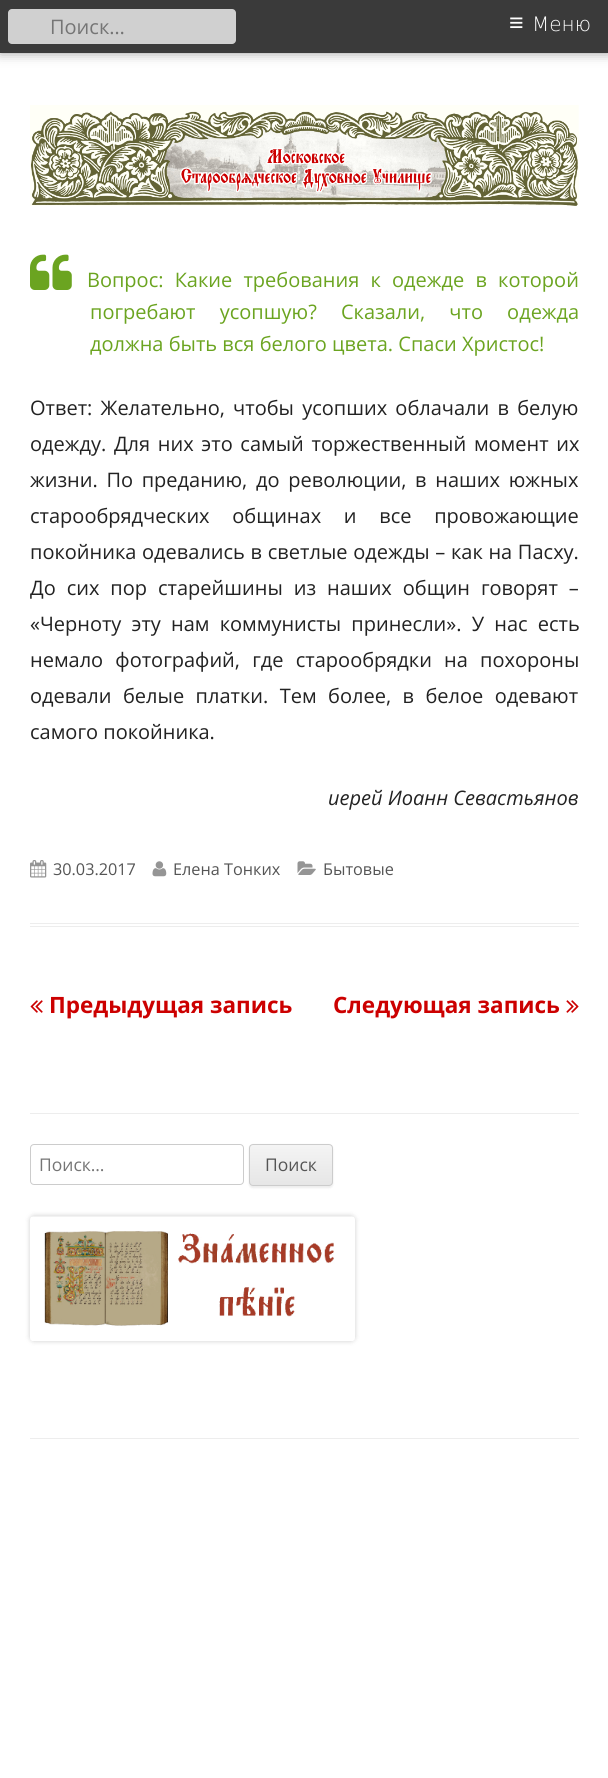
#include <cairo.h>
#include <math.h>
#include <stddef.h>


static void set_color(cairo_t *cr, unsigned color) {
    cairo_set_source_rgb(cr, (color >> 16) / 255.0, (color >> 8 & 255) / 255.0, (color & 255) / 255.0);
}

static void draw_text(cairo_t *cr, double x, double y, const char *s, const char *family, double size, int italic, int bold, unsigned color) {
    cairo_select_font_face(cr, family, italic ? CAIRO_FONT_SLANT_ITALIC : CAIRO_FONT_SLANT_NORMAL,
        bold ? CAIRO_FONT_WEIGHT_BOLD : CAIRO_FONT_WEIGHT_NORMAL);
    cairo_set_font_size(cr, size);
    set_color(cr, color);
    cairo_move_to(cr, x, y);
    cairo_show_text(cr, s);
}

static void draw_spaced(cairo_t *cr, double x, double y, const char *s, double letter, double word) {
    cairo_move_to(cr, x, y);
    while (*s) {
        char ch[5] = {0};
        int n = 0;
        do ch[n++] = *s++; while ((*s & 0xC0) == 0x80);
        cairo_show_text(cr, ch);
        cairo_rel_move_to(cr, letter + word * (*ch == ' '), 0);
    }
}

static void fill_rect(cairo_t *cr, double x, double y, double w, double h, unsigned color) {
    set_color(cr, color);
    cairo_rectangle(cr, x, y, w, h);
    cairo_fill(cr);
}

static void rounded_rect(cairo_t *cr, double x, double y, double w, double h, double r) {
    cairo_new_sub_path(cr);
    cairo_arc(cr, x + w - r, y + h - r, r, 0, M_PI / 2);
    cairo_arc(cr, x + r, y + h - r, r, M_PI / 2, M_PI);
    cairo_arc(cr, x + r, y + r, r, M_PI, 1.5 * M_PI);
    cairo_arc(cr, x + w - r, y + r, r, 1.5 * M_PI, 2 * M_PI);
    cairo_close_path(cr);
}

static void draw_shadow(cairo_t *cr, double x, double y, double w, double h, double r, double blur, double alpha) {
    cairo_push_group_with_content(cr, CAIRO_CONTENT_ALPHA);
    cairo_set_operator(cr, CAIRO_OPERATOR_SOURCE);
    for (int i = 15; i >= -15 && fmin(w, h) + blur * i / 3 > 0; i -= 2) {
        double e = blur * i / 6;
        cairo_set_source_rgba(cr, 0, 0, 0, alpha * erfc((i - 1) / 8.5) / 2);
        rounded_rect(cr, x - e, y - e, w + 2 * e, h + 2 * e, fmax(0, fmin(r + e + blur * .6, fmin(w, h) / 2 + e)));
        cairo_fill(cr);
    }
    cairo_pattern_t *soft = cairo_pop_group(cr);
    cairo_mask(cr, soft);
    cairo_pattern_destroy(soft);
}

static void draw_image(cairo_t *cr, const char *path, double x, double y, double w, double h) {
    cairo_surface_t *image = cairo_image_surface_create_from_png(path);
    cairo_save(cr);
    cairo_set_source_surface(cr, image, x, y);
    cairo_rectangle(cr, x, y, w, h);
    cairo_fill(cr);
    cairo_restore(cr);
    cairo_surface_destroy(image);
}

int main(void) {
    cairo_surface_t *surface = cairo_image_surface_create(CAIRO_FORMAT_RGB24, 608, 1778);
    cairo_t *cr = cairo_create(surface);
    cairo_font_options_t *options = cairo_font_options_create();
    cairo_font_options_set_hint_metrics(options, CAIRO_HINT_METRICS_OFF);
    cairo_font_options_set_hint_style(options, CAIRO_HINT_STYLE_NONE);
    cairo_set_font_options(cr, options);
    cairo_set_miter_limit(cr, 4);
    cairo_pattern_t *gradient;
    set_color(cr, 0xFFFFFF);
    cairo_paint(cr);
    set_color(cr, 0x000000);
    draw_shadow(cr, 0, 0, 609, 53, 0, 6, 0.4);
    fill_rect(cr, 0, 0, 608, 53, 0x3A3A3A);
    set_color(cr, 0xD0D0D0);
    rounded_rect(cr, 8, 9, 228, 35, 4);
    cairo_fill(cr);
    draw_text(cr, 50, 34, "Поиск…", "Open Sans", 20, 0, 0, 0x757575);
    draw_text(cr, 509, 31, "≡", "Liberation Sans", 25, 0, 0, 0xFFFFFF);
    draw_text(cr, 532, 31, "Меню", "DejaVu Sans ExtraLight", 20, 0, 0, 0xFFFFFF);
    draw_image(cr, "assets/img1.png", 30, 105, 549, 101);
    fill_rect(cr, 30, 923, 549, 1, 0xEDEDED);
    fill_rect(cr, 30, 926, 549, 1, 0xEDEDED);
    draw_image(cr, "assets/img2.png", 30, 254, 42, 36);
    cairo_select_font_face(cr, "Open Sans", CAIRO_FONT_SLANT_NORMAL, CAIRO_FONT_WEIGHT_NORMAL);
    set_color(cr, 0x6BA420);
    draw_spaced(cr, 87, 287, "Вопрос: Какие требования к одежде в которой", 0, 6);
    draw_spaced(cr, 90, 319, "погребают усопшую? Сказали, что одежда", 0, 19);
    draw_text(cr, 90, 351, "должна быть вся белого цвета. Спаси Христос!", "Open Sans", 20, 0, 0, 0x6BA420);
    set_color(cr, 0x222222);
    draw_spaced(cr, 30, 415, "Ответ: Желательно, чтобы усопших облачали в белую", 0, 3);
    draw_spaced(cr, 30, 451, "одежду. Для них это самый торжественный момент их", 0, 2.5);
    draw_spaced(cr, 30, 487, "жизни. По преданию, до революции, в наших южных", 0, 3.5);
    draw_spaced(cr, 30, 523, "старообрядческих общинах и все провожающие", 0, 17.5);
    draw_spaced(cr, 30, 559, "покойника одевались в светлые одежды – как на Пасху.", 0, 0.5);
    draw_spaced(cr, 30, 595, "До сих пор старейшины из наших общин говорят –", 0, 5.75);
    draw_spaced(cr, 30, 631, "«Черноту эту нам коммунисты принесли». У нас есть", 0, 5);
    draw_spaced(cr, 30, 667, "немало фотографий, где старообрядки на похороны", 0, 7);
    draw_spaced(cr, 30, 703, "одевали белые платки. Тем более, в белое одевают", 0, 6.25);
    draw_text(cr, 30, 739, "самого покойника.", "Open Sans", 20, 0, 0, 0x222222);
    draw_text(cr, 328, 805, "иерей Иоанн Севастьянов", "Open Sans", 20, 1, 0, 0x222222);
    draw_image(cr, "assets/img3.png", 30, 860, 17, 18);
    draw_text(cr, 53, 875, "30.03.2017", "Open Sans", 16.25, 0, 0, 0x555555);
    draw_image(cr, "assets/img4.png", 152, 861, 15, 16);
    draw_text(cr, 173, 875, "Елена Тонких", "Open Sans", 16.25, 0, 0, 0x555555);
    draw_image(cr, "assets/img5.png", 297, 861, 19, 14);
    draw_text(cr, 323, 875, "Бытовые", "Open Sans", 16.25, 0, 0, 0x555555);
    draw_image(cr, "assets/img6.png", 30, 1000, 13, 13);
    draw_text(cr, 49, 1013, "Предыдущая запись", "Open Sans", 22.5, 0, 1, 0xCC0000);
    draw_text(cr, 333, 1013, "Следующая запись", "Open Sans", 22.5, 0, 1, 0xCC0000);
    draw_image(cr, "assets/img7.png", 566, 1000, 13, 13);
    fill_rect(cr, 30, 1113, 549, 1, 0xEDEDED);
    rounded_rect(cr, 30.5, 1144.5, 213, 40, 3.5);
    set_color(cr, 0xCCCCCC);
    cairo_set_line_width(cr, 1);
    cairo_stroke(cr);
    draw_text(cr, 39, 1171, "Поиск…", "Open Sans", 17.5, 0, 0, 0x757575);
    set_color(cr, 0x404040);
    draw_shadow(cr, 249, 1145, 84, 43, 4, 1, 0.1);
    cairo_save(cr);
    rounded_rect(cr, 249, 1144, 84, 42, 4);
    cairo_clip(cr);
    gradient = cairo_pattern_create_linear(291, 1145, 291, 1185);
    cairo_pattern_add_color_stop_rgba(gradient, 0, 0.957, 0.957, 0.957, 1);
    cairo_pattern_add_color_stop_rgba(gradient, 1, 0.902, 0.902, 0.902, 1);
    cairo_set_source(cr, gradient);
    cairo_pattern_destroy(gradient);
    cairo_rectangle(cr, 249, 1145, 84, 40);
    cairo_fill(cr);
    cairo_restore(cr);
    rounded_rect(cr, 249.5, 1144.5, 83, 41, 3.5);
    set_color(cr, 0xCCCCCC);
    cairo_stroke(cr);
    draw_text(cr, 265, 1171, "Поиск", "Open Sans", 17.5, 0, 0, 0x555555);
    set_color(cr, 0x000000);
    draw_shadow(cr, 30, 1216, 325, 125, 4, 2.5, 0.2);
    draw_image(cr, "assets/img8.png", 30, 1216, 325, 125);
    fill_rect(cr, 30, 1438, 549, 1, 0xEDEDED);
    cairo_surface_write_to_png(surface, "output.png");
    cairo_font_options_destroy(options);
    cairo_destroy(cr);
    cairo_surface_destroy(surface);
    return 0;
}
